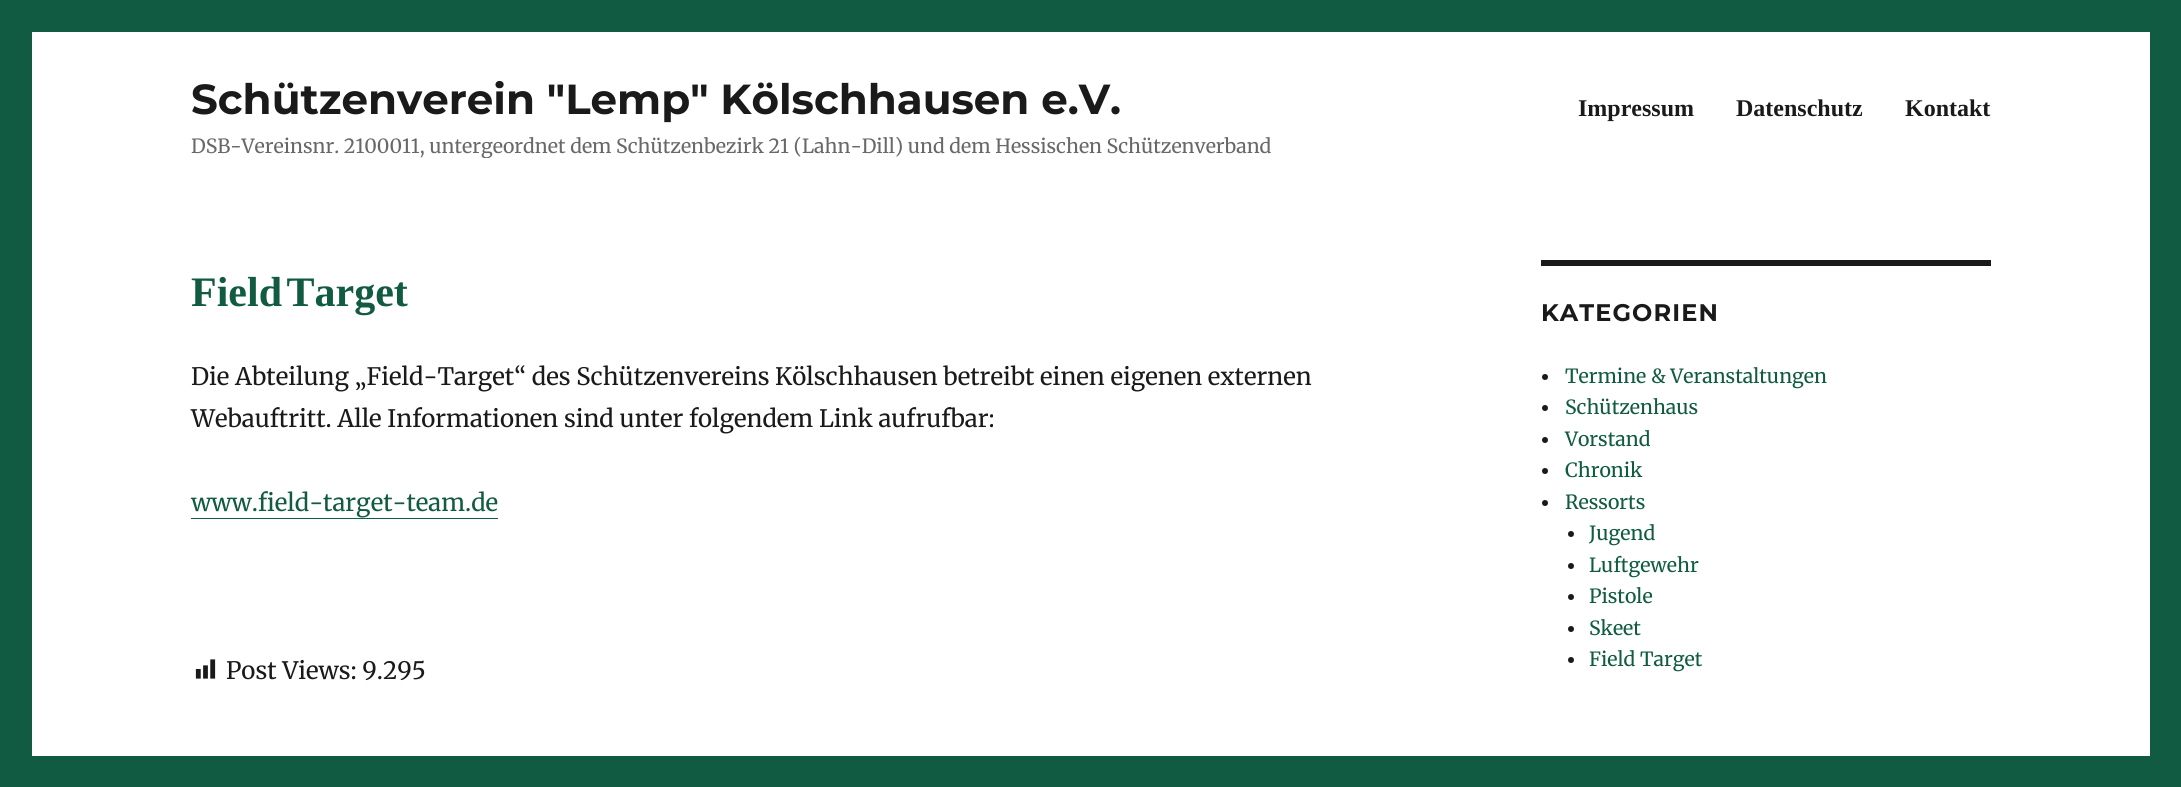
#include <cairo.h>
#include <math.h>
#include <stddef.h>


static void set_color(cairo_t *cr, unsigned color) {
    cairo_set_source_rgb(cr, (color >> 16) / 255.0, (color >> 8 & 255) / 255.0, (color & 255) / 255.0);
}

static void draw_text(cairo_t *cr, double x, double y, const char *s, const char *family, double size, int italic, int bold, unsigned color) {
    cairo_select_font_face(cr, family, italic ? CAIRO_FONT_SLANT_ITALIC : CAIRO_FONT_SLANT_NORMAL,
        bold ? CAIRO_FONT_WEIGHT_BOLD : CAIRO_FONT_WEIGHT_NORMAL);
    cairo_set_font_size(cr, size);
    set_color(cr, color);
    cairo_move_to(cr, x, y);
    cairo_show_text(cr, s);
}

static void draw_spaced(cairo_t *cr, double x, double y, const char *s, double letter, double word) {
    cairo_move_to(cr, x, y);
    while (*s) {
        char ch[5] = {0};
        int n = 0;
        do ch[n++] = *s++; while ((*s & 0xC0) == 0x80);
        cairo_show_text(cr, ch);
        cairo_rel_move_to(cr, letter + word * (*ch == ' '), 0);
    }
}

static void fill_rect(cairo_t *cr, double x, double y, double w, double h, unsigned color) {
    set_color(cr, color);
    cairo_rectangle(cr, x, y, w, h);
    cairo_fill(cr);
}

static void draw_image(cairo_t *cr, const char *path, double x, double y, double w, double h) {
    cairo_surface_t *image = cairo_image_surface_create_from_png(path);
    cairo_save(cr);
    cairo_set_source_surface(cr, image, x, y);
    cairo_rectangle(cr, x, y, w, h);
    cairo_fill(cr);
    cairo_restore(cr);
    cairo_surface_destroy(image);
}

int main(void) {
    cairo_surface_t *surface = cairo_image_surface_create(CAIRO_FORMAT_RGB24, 2181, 787);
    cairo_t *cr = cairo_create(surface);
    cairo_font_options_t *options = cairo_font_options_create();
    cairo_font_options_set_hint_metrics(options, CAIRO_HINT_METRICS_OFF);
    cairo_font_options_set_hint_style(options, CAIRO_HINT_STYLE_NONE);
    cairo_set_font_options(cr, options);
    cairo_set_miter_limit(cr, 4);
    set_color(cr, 0x105B42);
    cairo_paint(cr);
    fill_rect(cr, 32, 32, 2118, 724, 0xFFFFFF);
    draw_text(cr, 191, 114, "Schützenverein \"Lemp\" Kölschhausen e.V.", "Montserrat", 42, 0, 1, 0x1A1A1A);
    cairo_save(cr);
    cairo_rectangle(cr, 191, 74, 1080, 84);
    cairo_clip(cr);
    draw_text(cr, 191, 153, "DSB-Vereinsnr. 2100011, untergeordnet dem Schützenbezirk 21 (Lahn-Dill) und dem Hessischen Schützenverband", "Merriweather", 19.5, 0, 0, 0x686868);
    cairo_restore(cr);
    draw_text(cr, 1578, 116, "Impressum", "Liberation Serif", 24, 0, 1, 0x1A1A1A);
    draw_text(cr, 1736, 116, "Datenschutz", "Liberation Serif", 24, 0, 1, 0x1A1A1A);
    draw_text(cr, 1905, 116, "Kontakt", "Liberation Serif", 24, 0, 1, 0x1A1A1A);
    cairo_set_font_size(cr, 42);
    set_color(cr, 0x105B42);
    draw_spaced(cr, 191, 306, "Field Target", 0, -6);
    draw_text(cr, 191, 385, "Die Abteilung „Field-Target“ des Schützenvereins Kölschhausen betreibt einen eigenen externen", "Merriweather", 24, 0, 0, 0x1A1A1A);
    draw_text(cr, 191, 427, "Webauftritt. Alle Informationen sind unter folgendem Link aufrufbar:", "Merriweather", 24, 0, 0, 0x1A1A1A);
    draw_text(cr, 191, 511, "www.field-target-team.de", "Merriweather", 24, 0, 0, 0x105B42);
    fill_rect(cr, 191, 518, 307, 1, 0x105B42);
    draw_image(cr, "assets/img1.png", 195, 659, 21, 20);
    draw_text(cr, 226, 679, "Post Views: 9.295", "Merriweather", 24, 0, 0, 0x1A1A1A);
    fill_rect(cr, 1541, 260, 450, 6, 0x1A1A1A);
    cairo_select_font_face(cr, "Montserrat", CAIRO_FONT_SLANT_NORMAL, CAIRO_FONT_WEIGHT_BOLD);
    draw_spaced(cr, 1541, 321, "KATEGORIEN", 1.1, 0);
    cairo_new_path(cr);
    cairo_arc(cr, 1545, 377, 3, 0, 2 * M_PI);
    cairo_fill(cr);
    draw_text(cr, 1565, 383, "Termine & Veranstaltungen", "Merriweather", 19.5, 0, 0, 0x105B42);
    set_color(cr, 0x1A1A1A);
    cairo_new_path(cr);
    cairo_arc(cr, 1545, 408, 3, 0, 2 * M_PI);
    cairo_fill(cr);
    draw_text(cr, 1565, 414, "Schützenhaus", "Merriweather", 19.5, 0, 0, 0x105B42);
    set_color(cr, 0x1A1A1A);
    cairo_new_path(cr);
    cairo_arc(cr, 1545, 440, 3, 0, 2 * M_PI);
    cairo_fill(cr);
    draw_text(cr, 1565, 446, "Vorstand", "Merriweather", 19.5, 0, 0, 0x105B42);
    set_color(cr, 0x1A1A1A);
    cairo_new_path(cr);
    cairo_arc(cr, 1545, 471, 3, 0, 2 * M_PI);
    cairo_fill(cr);
    draw_text(cr, 1565, 477, "Chronik", "Merriweather", 19.5, 0, 0, 0x105B42);
    set_color(cr, 0x1A1A1A);
    cairo_new_path(cr);
    cairo_arc(cr, 1545, 503, 3, 0, 2 * M_PI);
    cairo_fill(cr);
    draw_text(cr, 1565, 509, "Ressorts", "Merriweather", 19.5, 0, 0, 0x105B42);
    set_color(cr, 0x1A1A1A);
    cairo_new_path(cr);
    cairo_arc(cr, 1571, 534, 3, 0, 2 * M_PI);
    cairo_fill(cr);
    draw_text(cr, 1589, 540, "Jugend", "Merriweather", 19.5, 0, 0, 0x105B42);
    set_color(cr, 0x1A1A1A);
    cairo_new_path(cr);
    cairo_arc(cr, 1571, 566, 3, 0, 2 * M_PI);
    cairo_fill(cr);
    draw_text(cr, 1589, 572, "Luftgewehr", "Merriweather", 19.5, 0, 0, 0x105B42);
    set_color(cr, 0x1A1A1A);
    cairo_new_path(cr);
    cairo_arc(cr, 1571, 597, 3, 0, 2 * M_PI);
    cairo_fill(cr);
    draw_text(cr, 1589, 603, "Pistole", "Merriweather", 19.5, 0, 0, 0x105B42);
    set_color(cr, 0x1A1A1A);
    cairo_new_path(cr);
    cairo_arc(cr, 1571, 629, 3, 0, 2 * M_PI);
    cairo_fill(cr);
    draw_text(cr, 1589, 635, "Skeet", "Merriweather", 19.5, 0, 0, 0x105B42);
    set_color(cr, 0x1A1A1A);
    cairo_new_path(cr);
    cairo_arc(cr, 1571, 660, 3, 0, 2 * M_PI);
    cairo_fill(cr);
    draw_text(cr, 1589, 666, "Field Target", "Merriweather", 19.5, 0, 0, 0x105B42);
    cairo_surface_write_to_png(surface, "output.png");
    cairo_font_options_destroy(options);
    cairo_destroy(cr);
    cairo_surface_destroy(surface);
    return 0;
}
